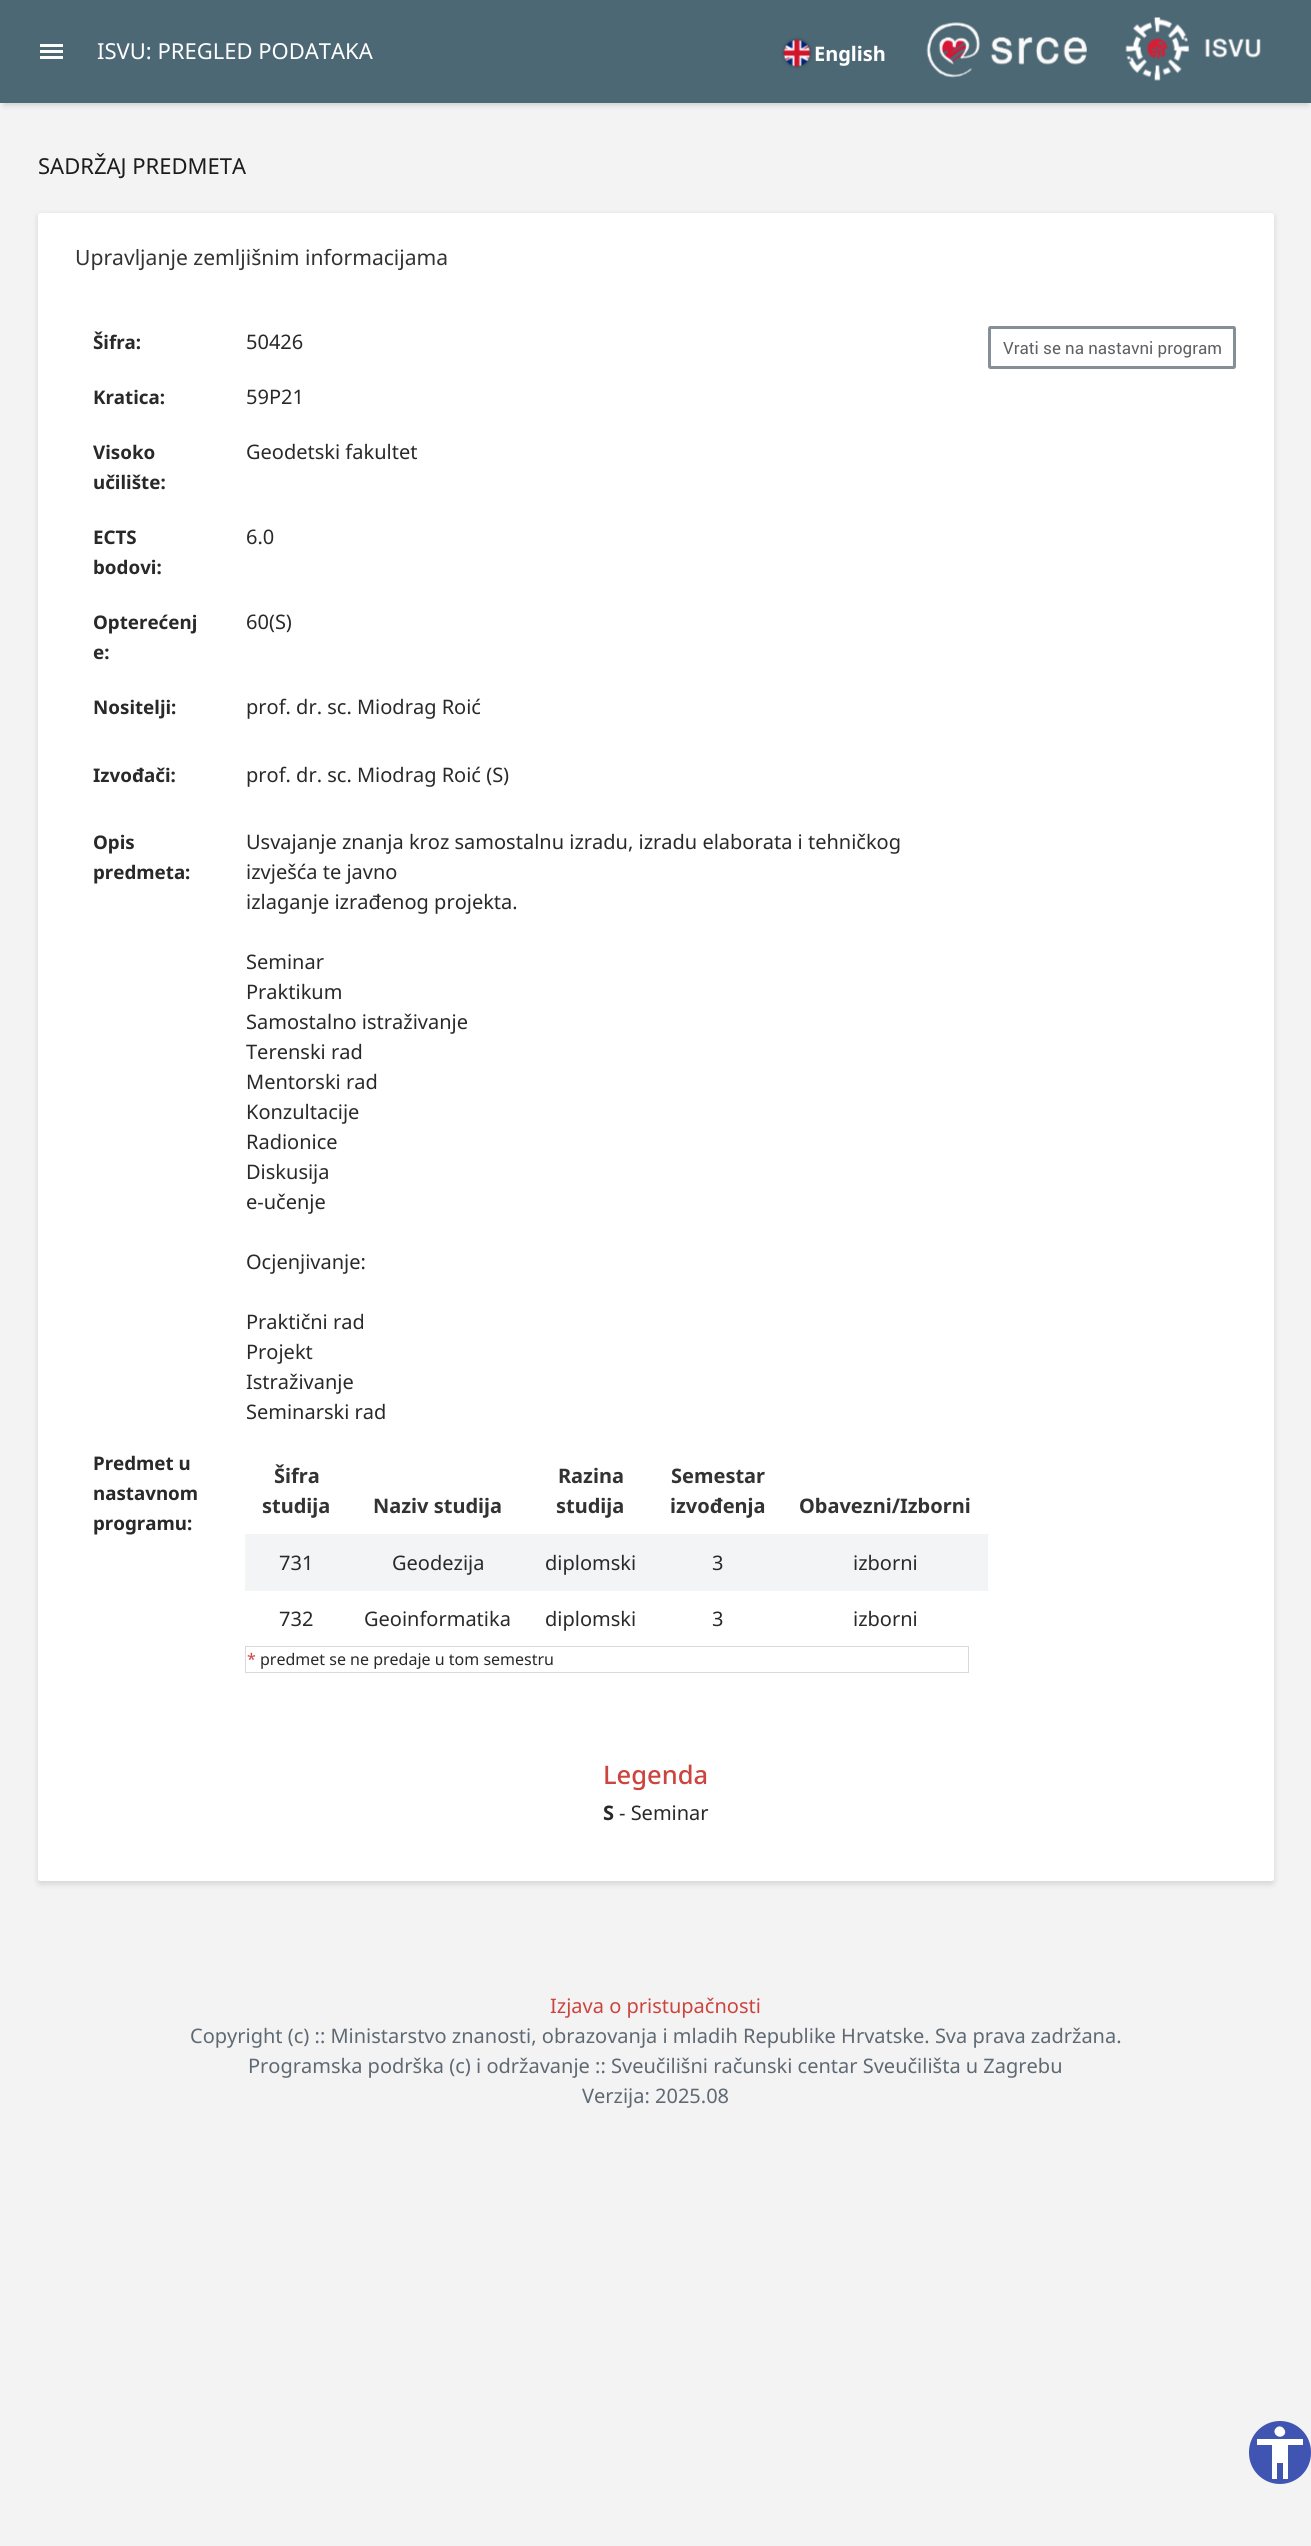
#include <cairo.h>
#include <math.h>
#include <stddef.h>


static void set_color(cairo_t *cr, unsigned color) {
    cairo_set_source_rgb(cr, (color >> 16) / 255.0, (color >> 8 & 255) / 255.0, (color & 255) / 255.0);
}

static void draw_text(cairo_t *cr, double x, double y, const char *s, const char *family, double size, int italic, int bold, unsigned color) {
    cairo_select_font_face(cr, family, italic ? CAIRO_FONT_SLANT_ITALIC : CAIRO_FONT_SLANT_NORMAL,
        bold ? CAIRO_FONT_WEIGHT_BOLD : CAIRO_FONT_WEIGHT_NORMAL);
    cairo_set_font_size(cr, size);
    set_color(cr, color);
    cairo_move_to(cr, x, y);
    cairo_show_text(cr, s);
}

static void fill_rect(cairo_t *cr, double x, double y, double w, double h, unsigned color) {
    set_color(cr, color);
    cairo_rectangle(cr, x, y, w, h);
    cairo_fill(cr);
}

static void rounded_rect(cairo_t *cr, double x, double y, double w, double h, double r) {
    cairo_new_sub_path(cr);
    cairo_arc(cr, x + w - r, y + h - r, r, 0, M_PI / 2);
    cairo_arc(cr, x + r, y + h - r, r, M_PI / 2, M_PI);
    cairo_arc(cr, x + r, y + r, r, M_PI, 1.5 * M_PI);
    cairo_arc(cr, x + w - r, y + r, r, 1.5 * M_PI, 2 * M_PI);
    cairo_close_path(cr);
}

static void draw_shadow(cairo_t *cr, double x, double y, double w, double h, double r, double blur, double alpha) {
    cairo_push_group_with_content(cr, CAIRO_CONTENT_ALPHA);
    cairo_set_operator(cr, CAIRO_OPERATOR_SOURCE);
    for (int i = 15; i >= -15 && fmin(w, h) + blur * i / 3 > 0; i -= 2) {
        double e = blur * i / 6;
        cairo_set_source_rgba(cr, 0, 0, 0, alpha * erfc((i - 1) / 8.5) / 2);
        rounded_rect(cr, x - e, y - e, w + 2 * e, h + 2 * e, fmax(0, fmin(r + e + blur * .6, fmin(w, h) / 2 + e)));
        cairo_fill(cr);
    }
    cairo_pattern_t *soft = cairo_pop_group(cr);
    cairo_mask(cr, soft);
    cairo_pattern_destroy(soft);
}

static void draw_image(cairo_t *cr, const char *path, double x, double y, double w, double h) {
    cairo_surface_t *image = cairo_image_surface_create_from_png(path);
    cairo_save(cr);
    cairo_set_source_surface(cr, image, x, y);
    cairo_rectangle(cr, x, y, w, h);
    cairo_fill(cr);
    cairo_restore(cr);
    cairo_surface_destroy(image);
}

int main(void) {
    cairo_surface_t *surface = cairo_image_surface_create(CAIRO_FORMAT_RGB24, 1311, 2546);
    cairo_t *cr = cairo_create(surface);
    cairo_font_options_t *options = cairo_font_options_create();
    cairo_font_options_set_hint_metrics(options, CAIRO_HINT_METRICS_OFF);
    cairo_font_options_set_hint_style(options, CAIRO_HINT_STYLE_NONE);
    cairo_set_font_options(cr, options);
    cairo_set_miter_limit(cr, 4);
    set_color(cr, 0xF3F3F3);
    cairo_paint(cr);
    set_color(cr, 0x000000);
    draw_shadow(cr, 4, 10, 1304, 95, 0, 3, 0.15);
    fill_rect(cr, 0, 0, 1311, 103, 0x4D6875);
    fill_rect(cr, 40, 44, 23, 3, 0xFFFFFF);
    fill_rect(cr, 40, 50, 23, 3, 0xFFFFFF);
    fill_rect(cr, 40, 56, 23, 3, 0xFFFFFF);
    draw_text(cr, 97, 59, "ISVU: PREGLED PODATAKA", "Noto Sans", 22, 0, 0, 0xFFFFFF);
    set_color(cr, 0x000000);
    draw_shadow(cr, 784, 40, 26, 26, 13, 2, 0.4);
    draw_image(cr, "assets/img1.png", 783, 39, 28, 28);
    draw_text(cr, 814, 61, "English", "Noto Sans", 20, 0, 1, 0xFFFFFF);
    draw_image(cr, "assets/img2.png", 926, 22, 161, 56);
    draw_image(cr, "assets/img3.png", 1125, 17, 136, 64);
    draw_text(cr, 38, 174, "SADRŽAJ PREDMETA", "Noto Sans", 22, 0, 0, 0x1C1C1D);
    set_color(cr, 0x000000);
    draw_shadow(cr, 38, 215, 1236, 1669, 2.5, 3, 0.13);
    set_color(cr, 0xFFFFFF);
    rounded_rect(cr, 38, 213, 1236, 1668, 2.5);
    cairo_fill(cr);
    draw_text(cr, 75, 265, "Upravljanje zemljišnim informacijama", "Noto Sans", 21.1, 0, 0, 0x333333);
    draw_text(cr, 93, 349, "Šifra:", "Noto Sans", 18.75, 0, 1, 0x292929);
    draw_text(cr, 246, 349, "50426", "Noto Sans", 20, 0, 0, 0x292929);
    draw_text(cr, 93, 404, "Kratica:", "Noto Sans", 18.75, 0, 1, 0x292929);
    draw_text(cr, 246, 404, "59P21", "Noto Sans", 20, 0, 0, 0x292929);
    draw_text(cr, 93, 459, "Visoko", "Noto Sans", 18.75, 0, 1, 0x292929);
    draw_text(cr, 93, 489, "učilište:", "Noto Sans", 18.75, 0, 1, 0x292929);
    draw_text(cr, 246, 459, "Geodetski fakultet", "Noto Sans", 20, 0, 0, 0x292929);
    draw_text(cr, 93, 544, "ECTS", "Noto Sans", 18.75, 0, 1, 0x292929);
    draw_text(cr, 93, 574, "bodovi:", "Noto Sans", 18.75, 0, 1, 0x292929);
    draw_text(cr, 246, 544, "6.0", "Noto Sans", 20, 0, 0, 0x292929);
    draw_text(cr, 93, 629, "Opterećenj", "Noto Sans", 18.75, 0, 1, 0x292929);
    draw_text(cr, 93, 659, "e:", "Noto Sans", 18.75, 0, 1, 0x292929);
    draw_text(cr, 246, 629, "60(S)", "Noto Sans", 20, 0, 0, 0x292929);
    draw_text(cr, 93, 714, "Nositelji:", "Noto Sans", 18.75, 0, 1, 0x292929);
    draw_text(cr, 246, 714, "prof. dr. sc. Miodrag Roić", "Noto Sans", 20, 0, 0, 0x292929);
    draw_text(cr, 93, 782, "Izvođači:", "Noto Sans", 18.75, 0, 1, 0x292929);
    draw_text(cr, 246, 782, "prof. dr. sc. Miodrag Roić (S)", "Noto Sans", 20, 0, 0, 0x292929);
    draw_text(cr, 93, 849, "Opis", "Noto Sans", 18.75, 0, 1, 0x292929);
    draw_text(cr, 93, 879, "predmeta:", "Noto Sans", 18.75, 0, 1, 0x292929);
    draw_text(cr, 246, 849, "Usvajanje znanja kroz samostalnu izradu, izradu elaborata i tehničkog", "Noto Sans", 20, 0, 0, 0x292929);
    draw_text(cr, 246, 879, "izvješća te javno", "Noto Sans", 20, 0, 0, 0x292929);
    draw_text(cr, 246, 909, "izlaganje izrađenog projekta.", "Noto Sans", 20, 0, 0, 0x292929);
    draw_text(cr, 246, 969, "Seminar", "Noto Sans", 20, 0, 0, 0x292929);
    draw_text(cr, 246, 999, "Praktikum", "Noto Sans", 20, 0, 0, 0x292929);
    draw_text(cr, 246, 1029, "Samostalno istraživanje", "Noto Sans", 20, 0, 0, 0x292929);
    draw_text(cr, 246, 1059, "Terenski rad", "Noto Sans", 20, 0, 0, 0x292929);
    draw_text(cr, 246, 1089, "Mentorski rad", "Noto Sans", 20, 0, 0, 0x292929);
    draw_text(cr, 246, 1119, "Konzultacije", "Noto Sans", 20, 0, 0, 0x292929);
    draw_text(cr, 246, 1149, "Radionice", "Noto Sans", 20, 0, 0, 0x292929);
    draw_text(cr, 246, 1179, "Diskusija", "Noto Sans", 20, 0, 0, 0x292929);
    draw_text(cr, 246, 1209, "e-učenje", "Noto Sans", 20, 0, 0, 0x292929);
    draw_text(cr, 246, 1269, "Ocjenjivanje:", "Noto Sans", 20, 0, 0, 0x292929);
    draw_text(cr, 246, 1329, "Praktični rad", "Noto Sans", 20, 0, 0, 0x292929);
    draw_text(cr, 246, 1359, "Projekt", "Noto Sans", 20, 0, 0, 0x292929);
    draw_text(cr, 246, 1389, "Istraživanje", "Noto Sans", 20, 0, 0, 0x292929);
    draw_text(cr, 246, 1419, "Seminarski rad", "Noto Sans", 20, 0, 0, 0x292929);
    draw_text(cr, 93, 1470, "Predmet u", "Noto Sans", 18.75, 0, 1, 0x292929);
    draw_text(cr, 93, 1500, "nastavnom", "Noto Sans", 18.75, 0, 1, 0x292929);
    draw_text(cr, 93, 1530, "programu:", "Noto Sans", 18.75, 0, 1, 0x292929);
    draw_text(cr, 274, 1483, "Šifra", "Noto Sans", 20, 0, 1, 0x333333);
    draw_text(cr, 262, 1513, "studija", "Noto Sans", 20, 0, 1, 0x333333);
    draw_text(cr, 373, 1513, "Naziv studija", "Noto Sans", 20, 0, 1, 0x333333);
    draw_text(cr, 558, 1483, "Razina", "Noto Sans", 20, 0, 1, 0x333333);
    draw_text(cr, 556, 1513, "studija", "Noto Sans", 20, 0, 1, 0x333333);
    draw_text(cr, 671, 1483, "Semestar", "Noto Sans", 20, 0, 1, 0x333333);
    draw_text(cr, 670, 1513, "izvođenja", "Noto Sans", 20, 0, 1, 0x333333);
    draw_text(cr, 799, 1513, "Obavezni/Izborni", "Noto Sans", 20, 0, 1, 0x333333);
    fill_rect(cr, 245, 1534, 743, 56, 0xF2F4F5);
    draw_text(cr, 279, 1570, "731", "Noto Sans", 20, 0, 0, 0x292929);
    draw_text(cr, 392, 1570, "Geodezija", "Noto Sans", 20, 0, 0, 0x292929);
    draw_text(cr, 545, 1570, "diplomski", "Noto Sans", 20, 0, 0, 0x292929);
    draw_text(cr, 712, 1570, "3", "Noto Sans", 20, 0, 0, 0x292929);
    fill_rect(cr, 988, 1534, 1, 1, 0xF2F4F5);
    draw_text(cr, 853, 1570, "izborni", "Noto Sans", 20, 0, 0, 0x292929);
    draw_text(cr, 279, 1626, "732", "Noto Sans", 20, 0, 0, 0x292929);
    draw_text(cr, 364, 1626, "Geoinformatika", "Noto Sans", 20, 0, 0, 0x292929);
    draw_text(cr, 545, 1626, "diplomski", "Noto Sans", 20, 0, 0, 0x292929);
    draw_text(cr, 712, 1626, "3", "Noto Sans", 20, 0, 0, 0x292929);
    fill_rect(cr, 245, 1590, 744, 1, 0xF2F4F5);
    draw_text(cr, 853, 1626, "izborni", "Noto Sans", 20, 0, 0, 0x292929);
    cairo_rectangle(cr, 245.5, 1646.5, 723, 26);
    set_color(cr, 0xD9D9D9);
    cairo_set_line_width(cr, 1);
    cairo_stroke(cr);
    draw_text(cr, 247, 1665, "*", "Noto Sans", 16, 0, 0, 0xCC443E);
    draw_text(cr, 260, 1665, "predmet se ne predaje u tom semestru", "Noto Sans", 16, 0, 0, 0x292929);
    rounded_rect(cr, 989.5, 327.5, 245, 40, 1);
    set_color(cr, 0x868E96);
    cairo_set_line_width(cr, 3);
    cairo_stroke(cr);
    draw_text(cr, 1003, 354, "Vrati se na nastavni program", "Roboto", 16.9, 0, 0, 0x5E6063);
    draw_text(cr, 603, 1784, "Legenda", "Noto Sans Medium", 25.5, 0, 0, 0xCC443E);
    draw_text(cr, 603, 1820, "S", "Noto Sans", 20, 0, 1, 0x292929);
    draw_text(cr, 619, 1820, "- Seminar", "Noto Sans", 20, 0, 0, 0x292929);
    draw_text(cr, 550, 2013, "Izjava o pristupačnosti", "Noto Sans", 20, 0, 0, 0xCC443E);
    draw_text(cr, 190, 2043, "Copyright (c) :: Ministarstvo znanosti, obrazovanja i mladih Republike Hrvatske. Sva prava zadržana.", "Noto Sans", 20, 0, 0, 0x5F6973);
    draw_text(cr, 248, 2073, "Programska podrška (c) i održavanje :: Sveučilišni računski centar Sveučilišta u Zagrebu", "Noto Sans", 20, 0, 0, 0x5F6973);
    draw_text(cr, 582, 2103, "Verzija: 2025.08", "Noto Sans", 20, 0, 0, 0x5F6973);
    set_color(cr, 0x4054B2);
    rounded_rect(cr, 1249, 2421, 62, 63, 31);
    cairo_fill(cr);
    set_color(cr, 0xFFFFFF);
    cairo_new_path(cr);
    cairo_move_to(cr, 1303, 2445);
    cairo_line_to(cr, 1288, 2445);
    cairo_line_to(cr, 1288, 2479);
    cairo_line_to(cr, 1283, 2479);
    cairo_line_to(cr, 1283, 2463);
    cairo_line_to(cr, 1277, 2463);
    cairo_line_to(cr, 1277, 2479);
    cairo_line_to(cr, 1272, 2479);
    cairo_line_to(cr, 1272, 2445);
    cairo_line_to(cr, 1257, 2445);
    cairo_line_to(cr, 1257, 2439);
    cairo_line_to(cr, 1303, 2439);
    cairo_close_path(cr);
    cairo_move_to(cr, 1276, 2428);
    cairo_curve_to(cr, 1281, 2423, 1288, 2431, 1284, 2435);
    cairo_curve_to(cr, 1279, 2440, 1271, 2433, 1276, 2428);
    cairo_close_path(cr);
    cairo_fill(cr);
    cairo_surface_write_to_png(surface, "output.png");
    cairo_font_options_destroy(options);
    cairo_destroy(cr);
    cairo_surface_destroy(surface);
    return 0;
}
